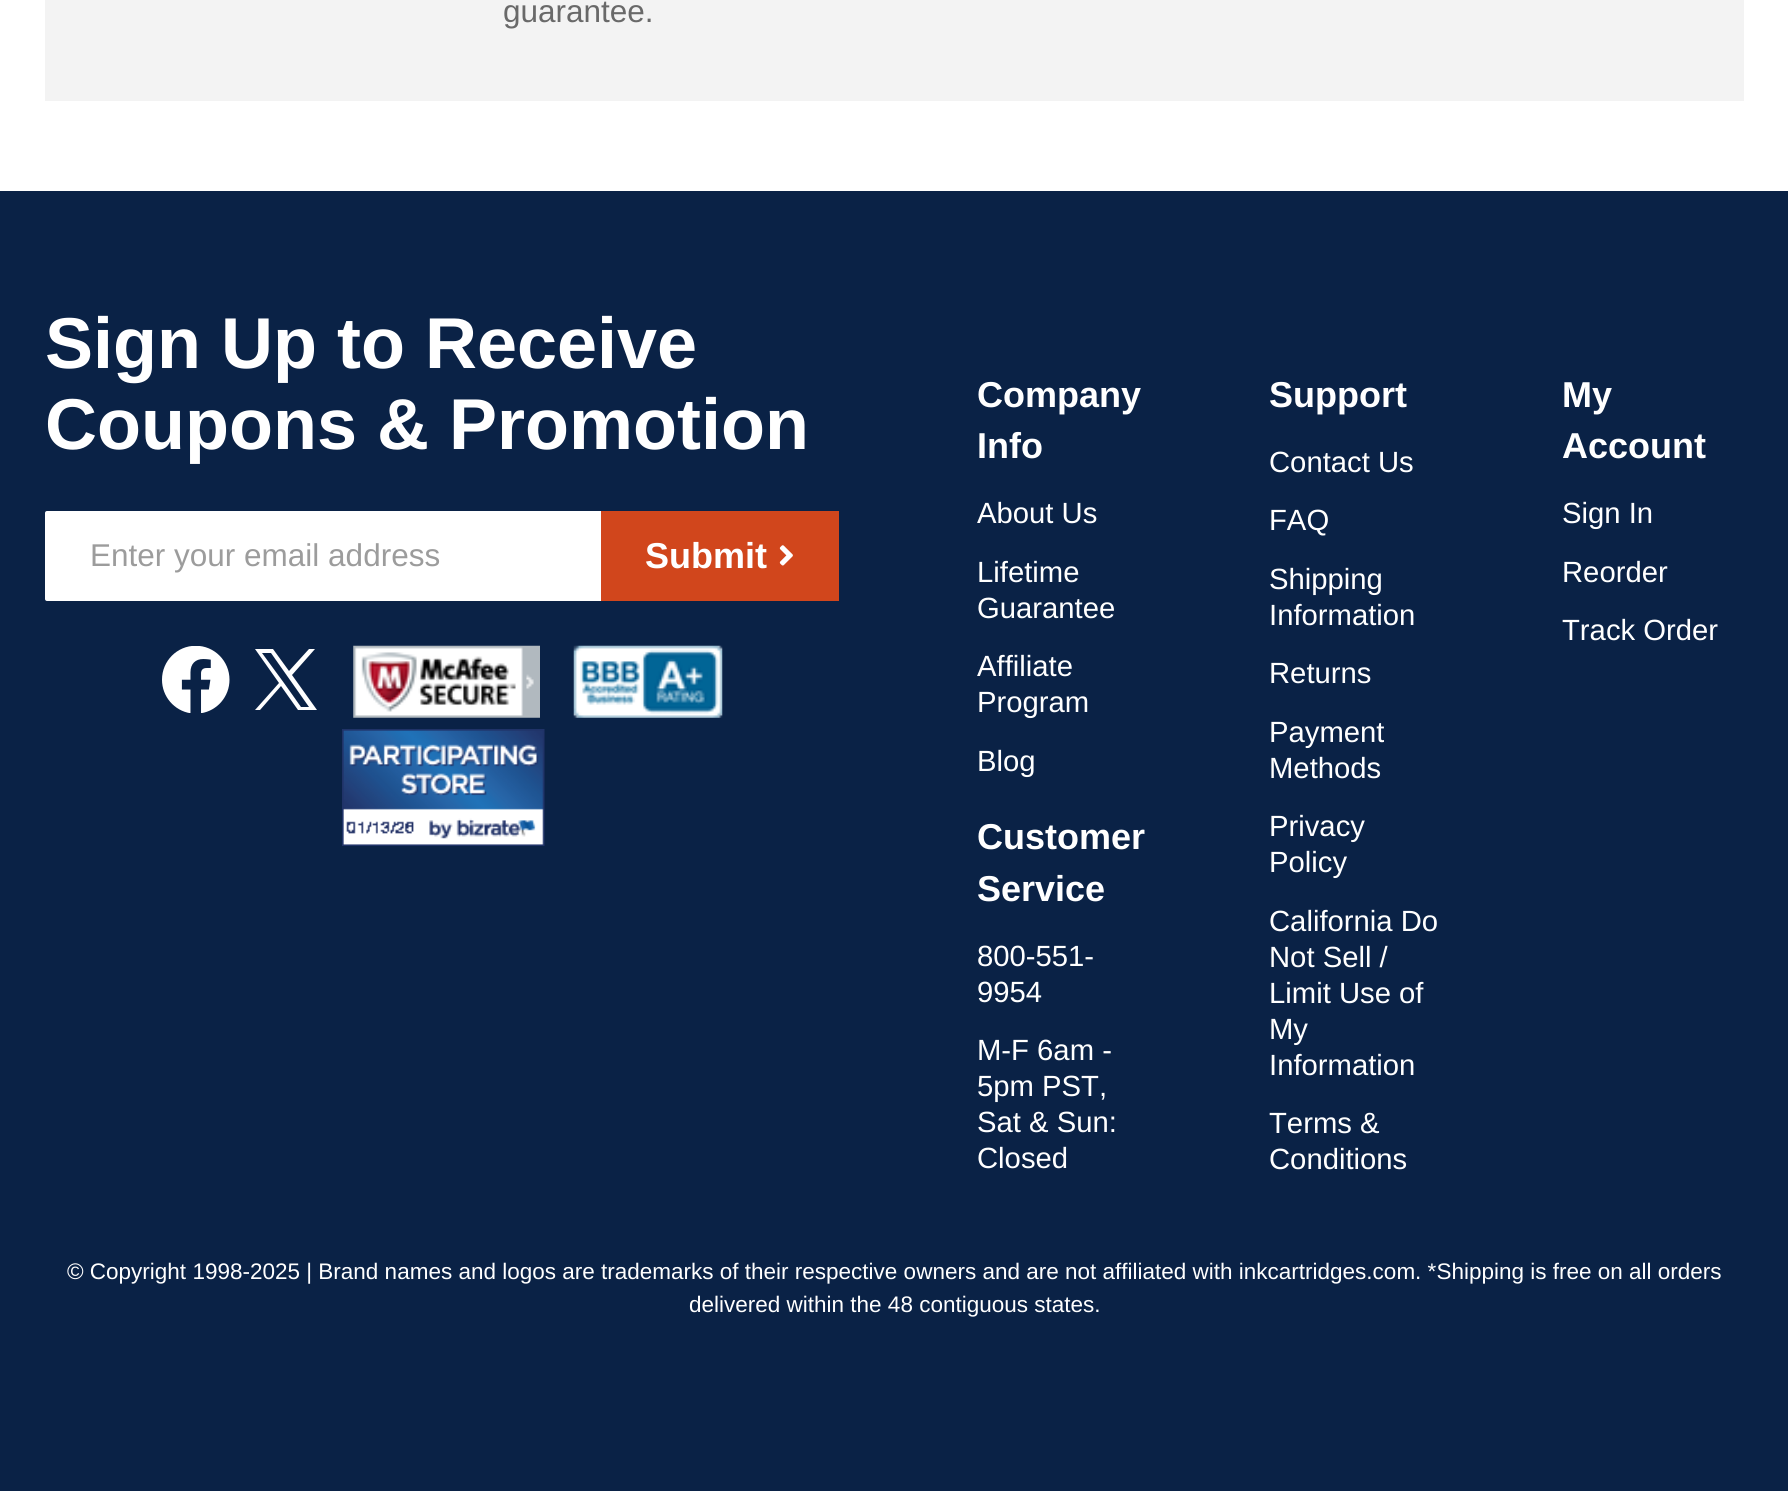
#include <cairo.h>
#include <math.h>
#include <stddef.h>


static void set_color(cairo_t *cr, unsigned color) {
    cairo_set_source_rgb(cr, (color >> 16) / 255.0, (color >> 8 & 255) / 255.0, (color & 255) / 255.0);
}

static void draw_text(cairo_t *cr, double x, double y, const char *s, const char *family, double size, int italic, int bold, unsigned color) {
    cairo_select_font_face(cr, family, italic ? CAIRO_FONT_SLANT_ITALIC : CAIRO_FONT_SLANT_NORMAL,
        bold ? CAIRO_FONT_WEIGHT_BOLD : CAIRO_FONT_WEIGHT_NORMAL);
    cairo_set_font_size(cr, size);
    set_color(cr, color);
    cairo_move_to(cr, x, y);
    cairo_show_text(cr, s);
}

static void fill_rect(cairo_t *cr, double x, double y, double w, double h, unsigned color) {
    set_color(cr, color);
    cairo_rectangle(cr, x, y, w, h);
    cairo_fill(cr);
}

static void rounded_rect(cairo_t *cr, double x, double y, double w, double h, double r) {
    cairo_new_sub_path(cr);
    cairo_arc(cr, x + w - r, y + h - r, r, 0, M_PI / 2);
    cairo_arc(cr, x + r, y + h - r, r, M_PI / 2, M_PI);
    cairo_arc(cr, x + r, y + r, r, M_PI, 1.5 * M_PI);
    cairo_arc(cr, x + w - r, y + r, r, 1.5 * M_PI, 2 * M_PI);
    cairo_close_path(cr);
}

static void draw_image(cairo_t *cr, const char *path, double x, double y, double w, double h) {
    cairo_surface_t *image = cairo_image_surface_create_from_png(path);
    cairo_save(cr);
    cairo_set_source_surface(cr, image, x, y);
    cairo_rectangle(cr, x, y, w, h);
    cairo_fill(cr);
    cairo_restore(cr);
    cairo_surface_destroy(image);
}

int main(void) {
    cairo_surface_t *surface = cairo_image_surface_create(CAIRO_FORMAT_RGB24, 1788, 1491);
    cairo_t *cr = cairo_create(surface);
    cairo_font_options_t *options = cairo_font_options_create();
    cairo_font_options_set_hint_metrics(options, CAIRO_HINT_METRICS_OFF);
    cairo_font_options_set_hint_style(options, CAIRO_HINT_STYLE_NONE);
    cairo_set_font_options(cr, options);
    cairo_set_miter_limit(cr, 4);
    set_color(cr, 0xFFFFFF);
    cairo_paint(cr);
    fill_rect(cr, 45, 0, 1699, 101, 0xF3F3F3);
    draw_text(cr, 503, 22, "guarantee.", "Liberation Sans", 31.5, 0, 0, 0x696969);
    fill_rect(cr, 0, 191, 1788, 1300, 0x0A2246);
    draw_text(cr, 45, 368, "Sign Up to Receive", "Liberation Sans", 72, 0, 1, 0xFFFFFF);
    draw_text(cr, 45, 449, "Coupons & Promotion", "Liberation Sans", 72, 0, 1, 0xFFFFFF);
    rounded_rect(cr, 45, 511, 558, 90, 2);
    cairo_fill(cr);
    draw_text(cr, 90, 566, "Enter your email address", "Liberation Sans", 31.5, 0, 0, 0x9C9C9C);
    fill_rect(cr, 601, 511, 238, 90, 0xD1461C);
    draw_text(cr, 645, 568, "Submit", "Liberation Sans", 36, 0, 1, 0xFFFFFF);
    draw_image(cr, "assets/img1.png", 779, 545, 14, 21);
    draw_image(cr, "assets/img2.png", 162, 646, 68, 67);
    cairo_new_path(cr);
    cairo_move_to(cr, 292, 675);
    cairo_line_to(cr, 315, 649);
    cairo_line_to(cr, 309, 649);
    cairo_line_to(cr, 289, 671);
    cairo_line_to(cr, 273, 649);
    cairo_line_to(cr, 255, 649);
    cairo_line_to(cr, 279, 683);
    cairo_line_to(cr, 255, 710);
    cairo_line_to(cr, 260, 710);
    cairo_line_to(cr, 281, 686);
    cairo_line_to(cr, 298, 710);
    cairo_line_to(cr, 317, 710);
    cairo_close_path(cr);
    cairo_move_to(cr, 284, 683);
    cairo_line_to(cr, 262, 653);
    cairo_line_to(cr, 271, 653);
    cairo_line_to(cr, 309, 707);
    cairo_line_to(cr, 301, 707);
    cairo_close_path(cr);
    cairo_fill(cr);
    draw_image(cr, "assets/img3.png", 353, 645, 187, 73);
    draw_image(cr, "assets/img4.png", 573, 645, 150, 73);
    draw_image(cr, "assets/img5.png", 342, 729, 203, 117);
    draw_text(cr, 977, 407, "Company", "Liberation Sans", 36, 0, 1, 0xFFFFFF);
    draw_text(cr, 977, 458, "Info", "Liberation Sans", 36, 0, 1, 0xFFFFFF);
    draw_text(cr, 977, 523, "About Us", "Liberation Sans", 29.25, 0, 0, 0xFFFFFF);
    draw_text(cr, 977, 582, "Lifetime", "Liberation Sans", 29.25, 0, 0, 0xFFFFFF);
    draw_text(cr, 977, 618, "Guarantee", "Liberation Sans", 29.25, 0, 0, 0xFFFFFF);
    draw_text(cr, 977, 676, "Affiliate", "Liberation Sans", 29.25, 0, 0, 0xFFFFFF);
    draw_text(cr, 977, 712, "Program", "Liberation Sans", 29.25, 0, 0, 0xFFFFFF);
    draw_text(cr, 977, 771, "Blog", "Liberation Sans", 29.25, 0, 0, 0xFFFFFF);
    draw_text(cr, 977, 849, "Customer", "Liberation Sans", 36, 0, 1, 0xFFFFFF);
    draw_text(cr, 977, 901, "Service", "Liberation Sans", 36, 0, 1, 0xFFFFFF);
    draw_text(cr, 977, 966, "800-551-", "Liberation Sans", 29.25, 0, 0, 0xFFFFFF);
    draw_text(cr, 977, 1002, "9954", "Liberation Sans", 29.25, 0, 0, 0xFFFFFF);
    draw_text(cr, 977, 1060, "M-F 6am -", "Liberation Sans", 29.25, 0, 0, 0xFFFFFF);
    draw_text(cr, 977, 1096, "5pm PST,", "Liberation Sans", 29.25, 0, 0, 0xFFFFFF);
    draw_text(cr, 977, 1132, "Sat & Sun:", "Liberation Sans", 29.25, 0, 0, 0xFFFFFF);
    draw_text(cr, 977, 1168, "Closed", "Liberation Sans", 29.25, 0, 0, 0xFFFFFF);
    draw_text(cr, 1269, 407, "Support", "Liberation Sans", 36, 0, 1, 0xFFFFFF);
    draw_text(cr, 1269, 472, "Contact Us", "Liberation Sans", 29.25, 0, 0, 0xFFFFFF);
    draw_text(cr, 1269, 530, "FAQ", "Liberation Sans", 29.25, 0, 0, 0xFFFFFF);
    draw_text(cr, 1269, 589, "Shipping", "Liberation Sans", 29.25, 0, 0, 0xFFFFFF);
    draw_text(cr, 1269, 625, "Information", "Liberation Sans", 29.25, 0, 0, 0xFFFFFF);
    draw_text(cr, 1269, 683, "Returns", "Liberation Sans", 29.25, 0, 0, 0xFFFFFF);
    draw_text(cr, 1269, 742, "Payment", "Liberation Sans", 29.25, 0, 0, 0xFFFFFF);
    draw_text(cr, 1269, 778, "Methods", "Liberation Sans", 29.25, 0, 0, 0xFFFFFF);
    draw_text(cr, 1269, 836, "Privacy", "Liberation Sans", 29.25, 0, 0, 0xFFFFFF);
    draw_text(cr, 1269, 872, "Policy", "Liberation Sans", 29.25, 0, 0, 0xFFFFFF);
    draw_text(cr, 1269, 931, "California Do", "Liberation Sans", 29.25, 0, 0, 0xFFFFFF);
    draw_text(cr, 1269, 967, "Not Sell /", "Liberation Sans", 29.25, 0, 0, 0xFFFFFF);
    draw_text(cr, 1269, 1003, "Limit Use of", "Liberation Sans", 29.25, 0, 0, 0xFFFFFF);
    draw_text(cr, 1269, 1039, "My", "Liberation Sans", 29.25, 0, 0, 0xFFFFFF);
    draw_text(cr, 1269, 1075, "Information", "Liberation Sans", 29.25, 0, 0, 0xFFFFFF);
    draw_text(cr, 1269, 1133, "Terms &", "Liberation Sans", 29.25, 0, 0, 0xFFFFFF);
    draw_text(cr, 1269, 1169, "Conditions", "Liberation Sans", 29.25, 0, 0, 0xFFFFFF);
    draw_text(cr, 1562, 407, "My", "Liberation Sans", 36, 0, 1, 0xFFFFFF);
    draw_text(cr, 1562, 458, "Account", "Liberation Sans", 36, 0, 1, 0xFFFFFF);
    draw_text(cr, 1562, 523, "Sign In", "Liberation Sans", 29.25, 0, 0, 0xFFFFFF);
    draw_text(cr, 1562, 582, "Reorder", "Liberation Sans", 29.25, 0, 0, 0xFFFFFF);
    draw_text(cr, 1562, 640, "Track Order", "Liberation Sans", 29.25, 0, 0, 0xFFFFFF);
    draw_text(cr, 67, 1279, "© Copyright 1998-2025 | Brand names and logos are trademarks of their respective owners and are not affiliated with inkcartridges.com. *Shipping is free on all orders", "Liberation Sans", 22.5, 0, 0, 0xFFFFFF);
    draw_text(cr, 689, 1312, "delivered within the 48 contiguous states.", "Liberation Sans", 22.5, 0, 0, 0xFFFFFF);
    cairo_surface_write_to_png(surface, "output.png");
    cairo_font_options_destroy(options);
    cairo_destroy(cr);
    cairo_surface_destroy(surface);
    return 0;
}
